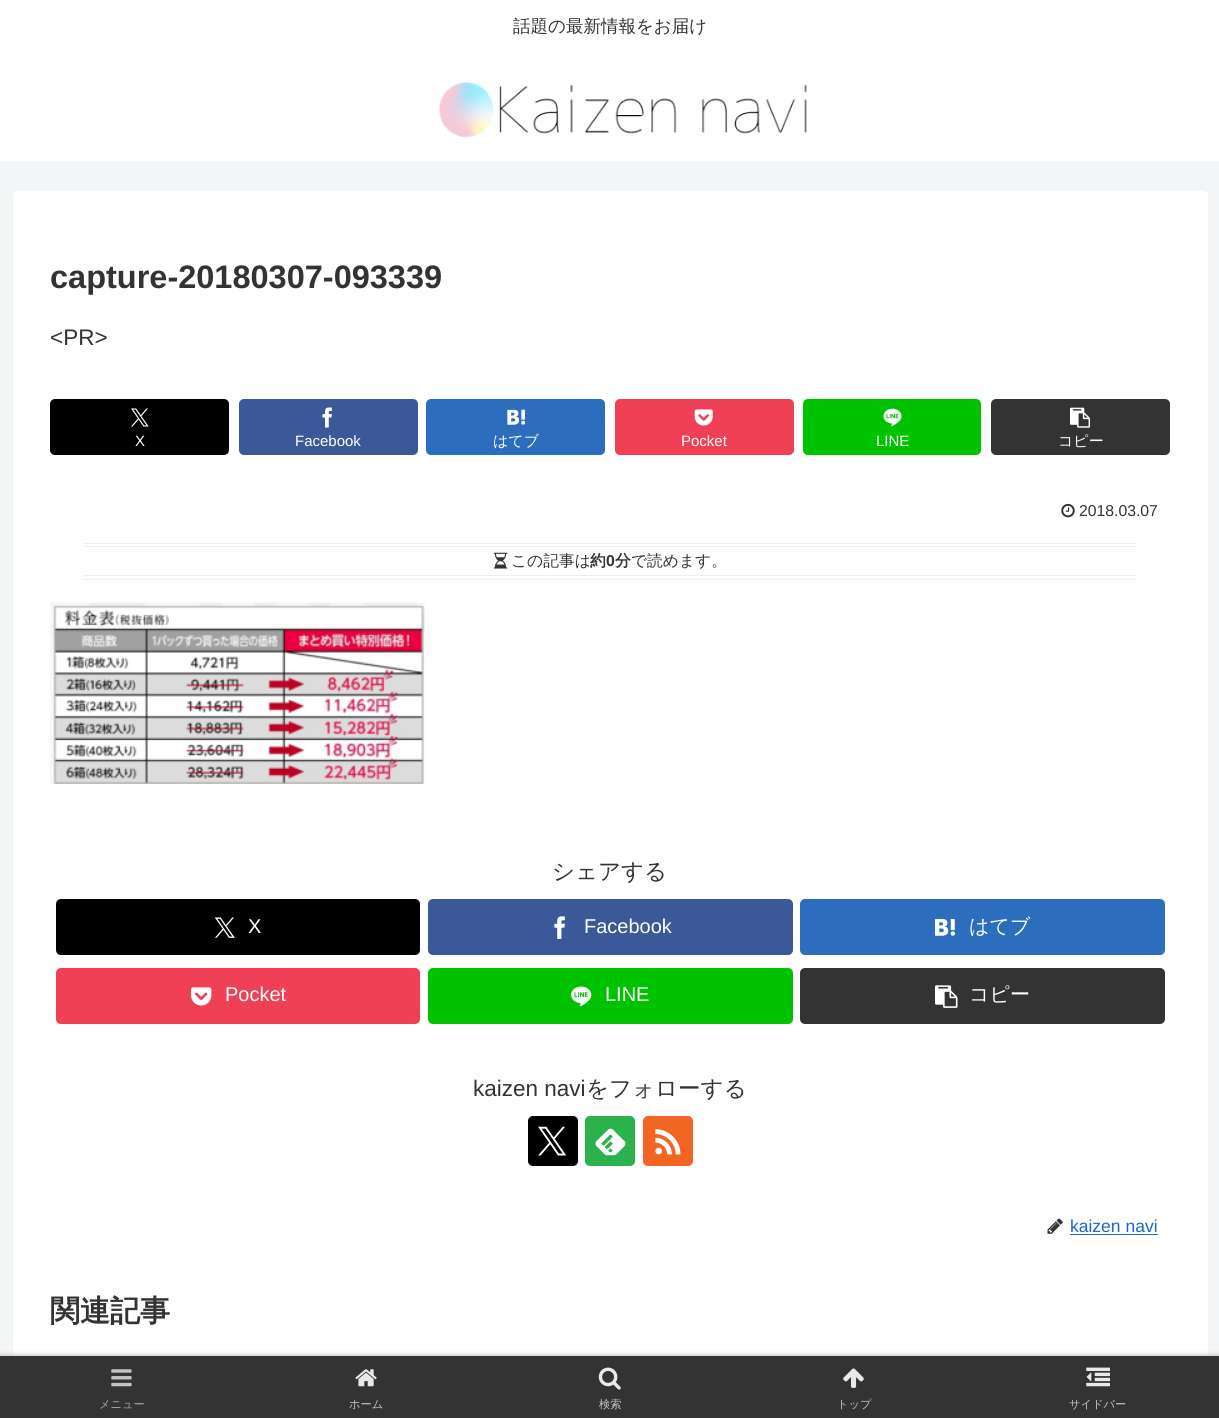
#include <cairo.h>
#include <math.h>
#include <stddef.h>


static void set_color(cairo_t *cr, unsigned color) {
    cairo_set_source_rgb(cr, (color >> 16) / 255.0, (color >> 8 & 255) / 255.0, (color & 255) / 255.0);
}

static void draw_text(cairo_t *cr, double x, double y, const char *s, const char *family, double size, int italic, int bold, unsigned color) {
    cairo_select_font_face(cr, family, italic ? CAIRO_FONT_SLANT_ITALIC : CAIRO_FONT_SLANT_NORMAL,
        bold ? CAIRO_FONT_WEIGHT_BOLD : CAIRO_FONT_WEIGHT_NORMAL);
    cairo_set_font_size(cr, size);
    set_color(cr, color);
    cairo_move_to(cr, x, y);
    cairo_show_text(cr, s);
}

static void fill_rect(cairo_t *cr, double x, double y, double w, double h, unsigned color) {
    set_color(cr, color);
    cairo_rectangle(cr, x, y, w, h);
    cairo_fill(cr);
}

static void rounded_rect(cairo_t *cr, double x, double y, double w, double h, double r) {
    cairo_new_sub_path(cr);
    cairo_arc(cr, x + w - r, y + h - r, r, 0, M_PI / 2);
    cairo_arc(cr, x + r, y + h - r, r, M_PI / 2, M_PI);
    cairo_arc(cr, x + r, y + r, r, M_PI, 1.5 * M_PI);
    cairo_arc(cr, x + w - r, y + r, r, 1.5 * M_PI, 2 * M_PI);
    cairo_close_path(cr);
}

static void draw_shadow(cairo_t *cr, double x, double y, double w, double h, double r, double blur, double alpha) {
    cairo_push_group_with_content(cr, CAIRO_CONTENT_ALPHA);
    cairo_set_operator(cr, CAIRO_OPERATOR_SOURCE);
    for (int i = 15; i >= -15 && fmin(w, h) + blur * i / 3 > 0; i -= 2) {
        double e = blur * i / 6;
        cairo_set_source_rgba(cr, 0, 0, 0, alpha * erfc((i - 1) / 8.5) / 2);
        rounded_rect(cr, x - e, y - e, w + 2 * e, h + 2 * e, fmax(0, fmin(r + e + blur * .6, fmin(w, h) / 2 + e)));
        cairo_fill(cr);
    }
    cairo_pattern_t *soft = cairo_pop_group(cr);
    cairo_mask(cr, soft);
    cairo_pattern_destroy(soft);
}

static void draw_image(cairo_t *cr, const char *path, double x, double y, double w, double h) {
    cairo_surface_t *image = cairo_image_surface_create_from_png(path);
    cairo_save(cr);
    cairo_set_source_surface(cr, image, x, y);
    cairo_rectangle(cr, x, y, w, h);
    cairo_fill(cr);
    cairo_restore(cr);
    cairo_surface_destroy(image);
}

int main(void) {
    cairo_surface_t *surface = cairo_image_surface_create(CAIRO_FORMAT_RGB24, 1219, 1418);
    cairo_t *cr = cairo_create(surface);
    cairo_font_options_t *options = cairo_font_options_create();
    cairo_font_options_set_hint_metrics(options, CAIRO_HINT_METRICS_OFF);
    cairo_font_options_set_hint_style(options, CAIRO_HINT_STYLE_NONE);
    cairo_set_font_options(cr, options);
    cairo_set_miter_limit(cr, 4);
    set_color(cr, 0xF4F5F7);
    cairo_paint(cr);
    fill_rect(cr, 0, 0, 1219, 161, 0xFFFFFF);
    draw_text(cr, 513, 32, "話題の最新情報をお届け", "WenQuanYi Zen Hei Medium", 17.5, 0, 0, 0x333333);
    draw_image(cr, "assets/img1.png", 439, 82, 368, 55);
    set_color(cr, 0xFFFFFF);
    rounded_rect(cr, 13, 191, 1195, 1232, 5);
    cairo_fill(cr);
    draw_text(cr, 50, 288, "capture-20180307-093339", "Liberation Sans", 32.5, 0, 1, 0x333333);
    draw_text(cr, 50, 345, "<PR>", "Liberation Sans", 22.5, 0, 0, 0x333333);
    set_color(cr, 0x000000);
    rounded_rect(cr, 50, 399, 179, 56, 5);
    cairo_fill(cr);
    draw_image(cr, "assets/img2.png", 131, 408, 18, 19);
    draw_text(cr, 135, 446, "X", "Liberation Sans", 15, 0, 0, 0xFFFFFF);
    set_color(cr, 0x3B5998);
    rounded_rect(cr, 239, 399, 179, 56, 5);
    cairo_fill(cr);
    draw_image(cr, "assets/img3.png", 322, 407, 10, 21);
    draw_text(cr, 295, 446, "Facebook", "Liberation Sans", 15, 0, 0, 0xFFFFFF);
    set_color(cr, 0x2C6EBD);
    rounded_rect(cr, 426, 399, 179, 56, 5);
    cairo_fill(cr);
    draw_image(cr, "assets/img4.png", 507, 409, 19, 16);
    draw_text(cr, 493, 446, "はてブ", "WenQuanYi Zen Hei Medium", 15, 0, 0, 0xFFFFFF);
    set_color(cr, 0xEF4056);
    rounded_rect(cr, 615, 399, 179, 56, 5);
    cairo_fill(cr);
    draw_image(cr, "assets/img5.png", 694, 409, 19, 17);
    draw_text(cr, 681, 446, "Pocket", "Liberation Sans", 15, 0, 0, 0xFFFFFF);
    set_color(cr, 0x00C300);
    rounded_rect(cr, 803, 399, 178, 56, 5);
    cairo_fill(cr);
    draw_image(cr, "assets/img6.png", 883, 408, 19, 19);
    draw_text(cr, 876, 446, "LINE", "Liberation Sans", 15, 0, 0, 0xFFFFFF);
    set_color(cr, 0x333333);
    rounded_rect(cr, 991, 399, 179, 56, 5);
    cairo_fill(cr);
    draw_image(cr, "assets/img7.png", 1070, 407, 20, 21);
    draw_text(cr, 1058, 446, "コピー", "WenQuanYi Zen Hei Medium", 15, 0, 0, 0xFFFFFF);
    draw_image(cr, "assets/img8.png", 1061, 503, 14, 15);
    draw_text(cr, 1079, 516, "2018.03.07", "Liberation Sans", 15.75, 0, 0, 0x333333);
    fill_rect(cr, 84, 543, 1052, 1, 0xEEEEEE);
    fill_rect(cr, 84, 546, 1052, 1, 0xEEEEEE);
    fill_rect(cr, 84, 575, 1052, 1, 0xEEEEEE);
    fill_rect(cr, 84, 579, 1052, 1, 0xEEEEEE);
    draw_image(cr, "assets/img9.png", 493, 552, 15, 17);
    draw_text(cr, 511, 566, "この記事は", "WenQuanYi Zen Hei Medium", 15.75, 0, 0, 0x333333);
    draw_text(cr, 590, 566, "約", "WenQuanYi Zen Hei", 15.75, 0, 1, 0x333333);
    draw_text(cr, 606, 566, "0", "Liberation Sans", 15.75, 0, 1, 0x333333);
    draw_text(cr, 615, 566, "分", "WenQuanYi Zen Hei", 15.75, 0, 1, 0x333333);
    draw_text(cr, 631, 566, "で読めます。", "WenQuanYi Zen Hei Medium", 15.75, 0, 0, 0x333333);
    draw_image(cr, "assets/img10.png", 50, 602, 375, 182);
    draw_text(cr, 552, 879, "シェアする", "WenQuanYi Zen Hei Medium", 22.5, 0, 0, 0x333333);
    set_color(cr, 0x000000);
    rounded_rect(cr, 56, 899, 364, 56, 5);
    cairo_fill(cr);
    draw_image(cr, "assets/img11.png", 214, 917, 21, 21);
    draw_text(cr, 248, 933, "X", "Liberation Sans", 20, 0, 0, 0xFFFFFF);
    set_color(cr, 0x3B5998);
    rounded_rect(cr, 428, 899, 365, 56, 5);
    cairo_fill(cr);
    draw_image(cr, "assets/img12.png", 554, 916, 11, 23);
    draw_text(cr, 584, 933, "Facebook", "Liberation Sans", 20, 0, 0, 0xFFFFFF);
    set_color(cr, 0x2C6EBD);
    rounded_rect(cr, 800, 899, 365, 56, 5);
    cairo_fill(cr);
    draw_image(cr, "assets/img13.png", 935, 919, 20, 17);
    draw_text(cr, 969, 933, "はてブ", "WenQuanYi Zen Hei Medium", 20, 0, 0, 0xFFFFFF);
    set_color(cr, 0xEF4056);
    rounded_rect(cr, 56, 968, 364, 56, 5);
    cairo_fill(cr);
    draw_image(cr, "assets/img14.png", 191, 987, 21, 19);
    draw_text(cr, 225, 1001, "Pocket", "Liberation Sans", 20, 0, 0, 0xFFFFFF);
    set_color(cr, 0x00C300);
    rounded_rect(cr, 428, 968, 365, 56, 5);
    cairo_fill(cr);
    draw_image(cr, "assets/img15.png", 571, 986, 21, 21);
    draw_text(cr, 605, 1001, "LINE", "Liberation Sans", 20, 0, 0, 0xFFFFFF);
    set_color(cr, 0x333333);
    rounded_rect(cr, 800, 968, 365, 56, 5);
    cairo_fill(cr);
    draw_image(cr, "assets/img16.png", 935, 985, 23, 23);
    draw_text(cr, 969, 1001, "コピー", "WenQuanYi Zen Hei Medium", 20, 0, 0, 0xFFFFFF);
    draw_text(cr, 473, 1096, "kaizen navi", "Liberation Sans", 22.5, 0, 0, 0x333333);
    draw_text(cr, 586, 1096, "をフォローする", "WenQuanYi Zen Hei Medium", 22.5, 0, 0, 0x333333);
    set_color(cr, 0x000000);
    rounded_rect(cr, 528, 1116, 50, 50, 5);
    cairo_fill(cr);
    draw_image(cr, "assets/img17.png", 538, 1126, 29, 30);
    set_color(cr, 0x2BB24C);
    rounded_rect(cr, 585, 1116, 50, 50, 5);
    cairo_fill(cr);
    draw_image(cr, "assets/img18.png", 595, 1128, 31, 28);
    set_color(cr, 0xF26522);
    rounded_rect(cr, 643, 1116, 50, 50, 5);
    cairo_fill(cr);
    draw_image(cr, "assets/img19.png", 655, 1129, 26, 26);
    draw_image(cr, "assets/img20.png", 1047, 1218, 16, 16);
    draw_text(cr, 1070, 1232, "kaizen navi", "Liberation Sans", 17.5, 0, 0, 0x1967D2);
    fill_rect(cr, 1070, 1234, 88, 1, 0x1967D2);
    draw_text(cr, 50, 1321, "関連記事", "WenQuanYi Zen Hei", 30, 0, 1, 0x333333);
    set_color(cr, 0xA9A9A9);
    draw_shadow(cr, 0, 1356, 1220, 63, 0, 3, 1);
    fill_rect(cr, 0, 1356, 1219, 62, 0x333333);
    draw_image(cr, "assets/img21.png", 111, 1369, 21, 18);
    draw_text(cr, 99, 1408, "メニュー", "WenQuanYi Zen Hei Medium", 11.25, 0, 0, 0xA7A7A7);
    draw_image(cr, "assets/img22.png", 355, 1369, 22, 18);
    draw_text(cr, 349, 1408, "ホーム", "WenQuanYi Zen Hei Medium", 11.25, 0, 0, 0xC5C5C5);
    draw_image(cr, "assets/img23.png", 598, 1367, 23, 23);
    draw_text(cr, 599, 1408, "検索", "WenQuanYi Zen Hei Medium", 11.25, 0, 0, 0xC5C5C5);
    draw_image(cr, "assets/img24.png", 843, 1368, 21, 20);
    draw_text(cr, 837, 1408, "トップ", "WenQuanYi Zen Hei Medium", 11.25, 0, 0, 0xC5C5C5);
    draw_image(cr, "assets/img25.png", 1086, 1367, 24, 20);
    draw_text(cr, 1069, 1408, "サイドバー", "WenQuanYi Zen Hei Medium", 11.25, 0, 0, 0xC5C5C5);
    cairo_surface_write_to_png(surface, "output.png");
    cairo_font_options_destroy(options);
    cairo_destroy(cr);
    cairo_surface_destroy(surface);
    return 0;
}
